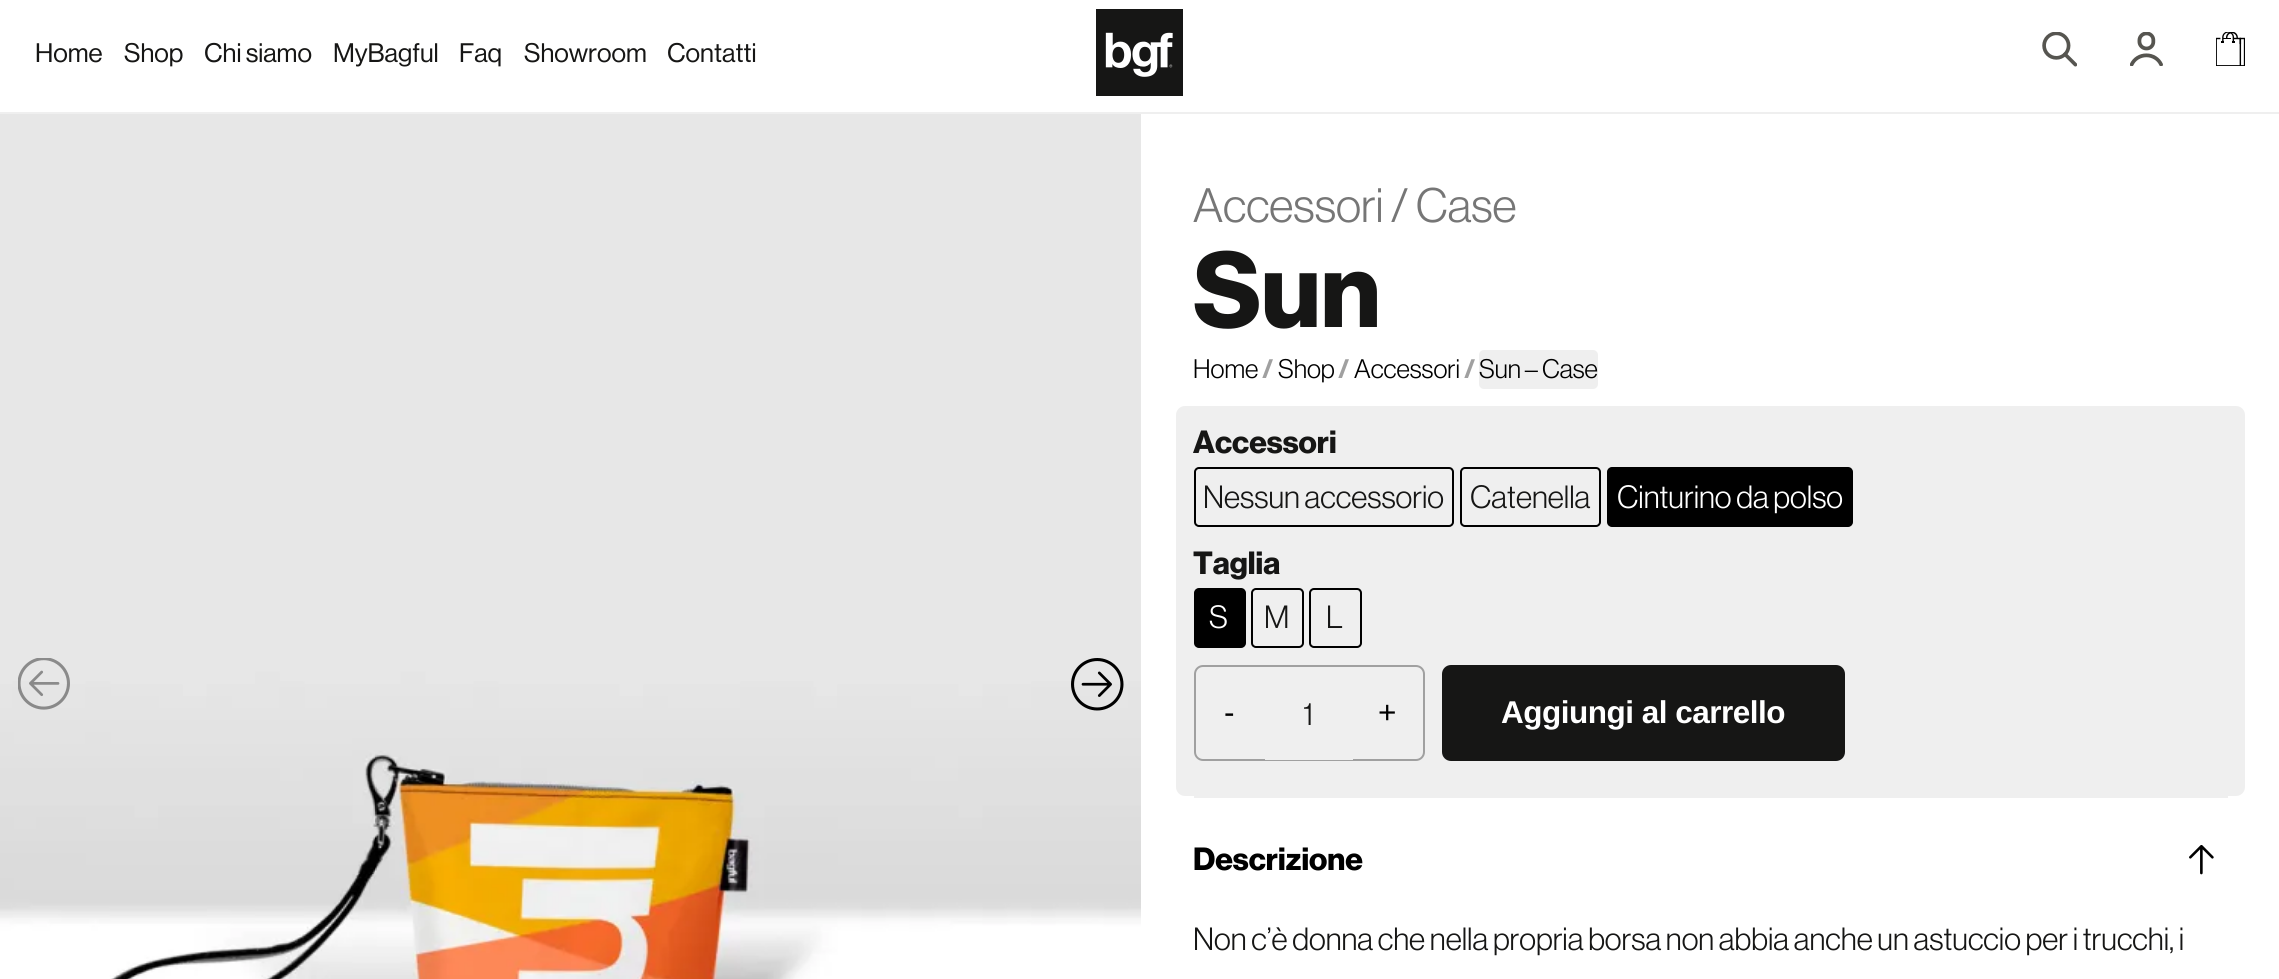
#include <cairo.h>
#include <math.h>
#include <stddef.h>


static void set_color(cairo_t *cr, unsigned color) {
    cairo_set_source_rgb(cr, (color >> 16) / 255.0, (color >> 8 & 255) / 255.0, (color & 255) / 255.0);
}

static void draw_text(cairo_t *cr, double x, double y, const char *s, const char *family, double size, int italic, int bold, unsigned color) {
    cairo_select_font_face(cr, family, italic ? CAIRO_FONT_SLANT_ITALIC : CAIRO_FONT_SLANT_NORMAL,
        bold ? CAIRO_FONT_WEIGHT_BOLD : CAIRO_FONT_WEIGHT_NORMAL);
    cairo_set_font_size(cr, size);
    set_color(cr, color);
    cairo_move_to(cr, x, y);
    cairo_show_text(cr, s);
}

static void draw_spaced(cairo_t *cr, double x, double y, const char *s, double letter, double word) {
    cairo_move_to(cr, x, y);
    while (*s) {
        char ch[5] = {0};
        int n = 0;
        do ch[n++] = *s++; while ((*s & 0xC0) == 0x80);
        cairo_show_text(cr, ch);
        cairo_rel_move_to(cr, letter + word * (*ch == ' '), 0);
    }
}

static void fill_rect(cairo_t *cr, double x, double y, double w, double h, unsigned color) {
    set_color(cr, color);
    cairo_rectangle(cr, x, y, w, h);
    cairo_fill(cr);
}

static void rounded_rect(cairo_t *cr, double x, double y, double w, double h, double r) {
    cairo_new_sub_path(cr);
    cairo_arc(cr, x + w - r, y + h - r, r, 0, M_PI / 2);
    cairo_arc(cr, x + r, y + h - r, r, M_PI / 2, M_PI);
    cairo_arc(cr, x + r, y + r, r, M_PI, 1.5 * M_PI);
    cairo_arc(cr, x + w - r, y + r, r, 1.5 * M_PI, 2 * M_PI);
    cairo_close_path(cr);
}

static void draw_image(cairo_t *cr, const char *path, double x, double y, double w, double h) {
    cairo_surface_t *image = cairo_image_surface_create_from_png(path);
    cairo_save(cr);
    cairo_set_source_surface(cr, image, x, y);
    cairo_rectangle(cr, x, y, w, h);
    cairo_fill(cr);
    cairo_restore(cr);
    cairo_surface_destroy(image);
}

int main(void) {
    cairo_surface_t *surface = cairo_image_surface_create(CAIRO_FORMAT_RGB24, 2279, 979);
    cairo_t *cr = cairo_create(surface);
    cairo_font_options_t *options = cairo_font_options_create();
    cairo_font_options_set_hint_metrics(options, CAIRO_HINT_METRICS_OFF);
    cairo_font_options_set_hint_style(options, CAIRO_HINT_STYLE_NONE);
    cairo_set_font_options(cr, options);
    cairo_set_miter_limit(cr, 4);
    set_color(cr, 0xFFFFFF);
    cairo_paint(cr);
    fill_rect(cr, 0, 112, 2279, 2, 0xEFEFEF);
    draw_text(cr, 35, 62, "Home", "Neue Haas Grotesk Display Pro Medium", 26.25, 0, 0, 0x161615);
    draw_text(cr, 124, 62, "Shop", "Neue Haas Grotesk Display Pro Medium", 26.25, 0, 0, 0x161615);
    draw_text(cr, 204, 62, "Chi siamo", "Neue Haas Grotesk Display Pro Medium", 26.25, 0, 0, 0x161615);
    draw_text(cr, 333, 62, "MyBagful", "Neue Haas Grotesk Display Pro Medium", 26.25, 0, 0, 0x161615);
    draw_text(cr, 459, 62, "Faq", "Neue Haas Grotesk Display Pro Medium", 26.25, 0, 0, 0x161615);
    draw_text(cr, 524, 62, "Showroom", "Neue Haas Grotesk Display Pro Medium", 26.25, 0, 0, 0x161615);
    draw_text(cr, 667, 62, "Contatti", "Neue Haas Grotesk Display Pro Medium", 26.25, 0, 0, 0x161615);
    draw_image(cr, "assets/img1.png", 1096, 9, 87, 87);
    draw_image(cr, "assets/img2.png", 2042, 32, 35, 35);
    draw_image(cr, "assets/img3.png", 2130, 32, 33, 34);
    draw_image(cr, "assets/img4.png", 2216, 32, 29, 34);
    draw_image(cr, "assets/img5.png", 0, 114, 1141, 865);
    draw_image(cr, "assets/img6.png", 18, 658, 52, 52);
    draw_image(cr, "assets/img7.png", 1071, 658, 53, 53);
    draw_text(cr, 1193, 222, "Accessori / Case", "Neue Haas Grotesk Display Pro", 47.25, 0, 0, 0x767676);
    draw_text(cr, 1193, 327, "Sun", "Neue Haas Grotesk Display Pro", 105, 0, 1, 0x161615);
    draw_text(cr, 1193, 378, "Home", "Neue Haas Grotesk Display Pro", 26.25, 0, 0, 0x000000);
    draw_text(cr, 1262, 378, "/", "Neue Haas Grotesk Display Pro", 26.25, 0, 1, 0xA0A0A0);
    draw_text(cr, 1278, 378, "Shop", "Neue Haas Grotesk Display Pro", 26.25, 0, 0, 0x000000);
    draw_text(cr, 1338, 378, "/", "Neue Haas Grotesk Display Pro", 26.25, 0, 1, 0xA0A0A0);
    draw_text(cr, 1354, 378, "Accessori", "Neue Haas Grotesk Display Pro", 26.25, 0, 0, 0x000000);
    draw_text(cr, 1464, 378, "/", "Neue Haas Grotesk Display Pro", 26.25, 0, 1, 0xA0A0A0);
    set_color(cr, 0xEFEFEF);
    rounded_rect(cr, 1479, 350, 119, 39, 5);
    cairo_fill(cr);
    draw_text(cr, 1479, 378, "Sun – Case", "Neue Haas Grotesk Display Pro", 26.25, 0, 0, 0x000000);
    set_color(cr, 0xEFEFEF);
    rounded_rect(cr, 1176, 406, 1069, 390, 9);
    cairo_fill(cr);
    draw_text(cr, 1193, 453, "Accessori", "Neue Haas Grotesk Display Pro", 31.5, 0, 1, 0x161615);
    rounded_rect(cr, 1195, 468, 258, 58, 4);
    set_color(cr, 0x000000);
    cairo_stroke(cr);
    draw_text(cr, 1203, 508, "Nessun accessorio", "Neue Haas Grotesk Display Pro", 31.5, 0, 0, 0x161615);
    rounded_rect(cr, 1461, 468, 139, 58, 4);
    set_color(cr, 0x000000);
    cairo_stroke(cr);
    draw_text(cr, 1470, 508, "Catenella", "Neue Haas Grotesk Display Pro", 31.5, 0, 0, 0x161615);
    set_color(cr, 0x000000);
    rounded_rect(cr, 1608, 468, 244, 58, 4);
    cairo_fill_preserve(cr);
    cairo_stroke(cr);
    draw_text(cr, 1617, 508, "Cinturino da polso", "Neue Haas Grotesk Display Pro", 31.5, 0, 0, 0xFFFFFF);
    draw_text(cr, 1193, 574, "Taglia", "Neue Haas Grotesk Display Pro", 31.5, 0, 1, 0x161615);
    set_color(cr, 0x000000);
    rounded_rect(cr, 1195, 589, 50, 58, 4);
    cairo_fill_preserve(cr);
    cairo_stroke(cr);
    draw_text(cr, 1209, 628, "S", "Neue Haas Grotesk Display Pro", 31.5, 0, 0, 0xFFFFFF);
    rounded_rect(cr, 1252, 589, 51, 58, 4);
    set_color(cr, 0x000000);
    cairo_stroke(cr);
    draw_text(cr, 1264, 628, "M", "Neue Haas Grotesk Display Pro", 31.5, 0, 0, 0x161615);
    rounded_rect(cr, 1310, 589, 51, 58, 4);
    set_color(cr, 0x000000);
    cairo_stroke(cr);
    draw_text(cr, 1326, 628, "L", "Neue Haas Grotesk Display Pro", 31.5, 0, 0, 0x161615);
    rounded_rect(cr, 1195, 666, 229, 94, 8);
    set_color(cr, 0xA0A0A0);
    cairo_stroke(cr);
    draw_text(cr, 1224, 723, "-", "Liberation Sans", 31.5, 0, 0, 0x000000);
    fill_rect(cr, 1265, 759, 88, 1, 0xEFEFEF);
    draw_text(cr, 1303, 725, "1", "Neue Haas Grotesk Display Pro", 31.5, 0, 0, 0x161615);
    draw_text(cr, 1378, 723, "+", "Liberation Sans", 31.5, 0, 0, 0x000000);
    set_color(cr, 0x161615);
    rounded_rect(cr, 1444, 667, 399, 92, 7);
    cairo_fill_preserve(cr);
    cairo_set_line_width(cr, 4);
    cairo_stroke(cr);
    cairo_select_font_face(cr, "Liberation Sans", CAIRO_FONT_SLANT_NORMAL, CAIRO_FONT_WEIGHT_BOLD);
    set_color(cr, 0xFFFFFF);
    draw_spaced(cr, 1501, 723, "Aggiungi al carrello", -0.5, 0);
    fill_rect(cr, 1194, 796, 1034, 2, 0xEFEFEF);
    draw_text(cr, 1193, 870, "Descrizione", "Neue Haas Grotesk Display Pro", 31.5, 0, 1, 0x000000);
    draw_image(cr, "assets/img8.png", 2189, 845, 25, 30);
    draw_text(cr, 1193, 950, "Non c’è donna che nella propria borsa non abbia anche un astuccio per i trucchi, i", "Neue Haas Grotesk Display Pro", 31.5, 0, 0, 0x161615);
    cairo_surface_write_to_png(surface, "output.png");
    cairo_font_options_destroy(options);
    cairo_destroy(cr);
    cairo_surface_destroy(surface);
    return 0;
}
